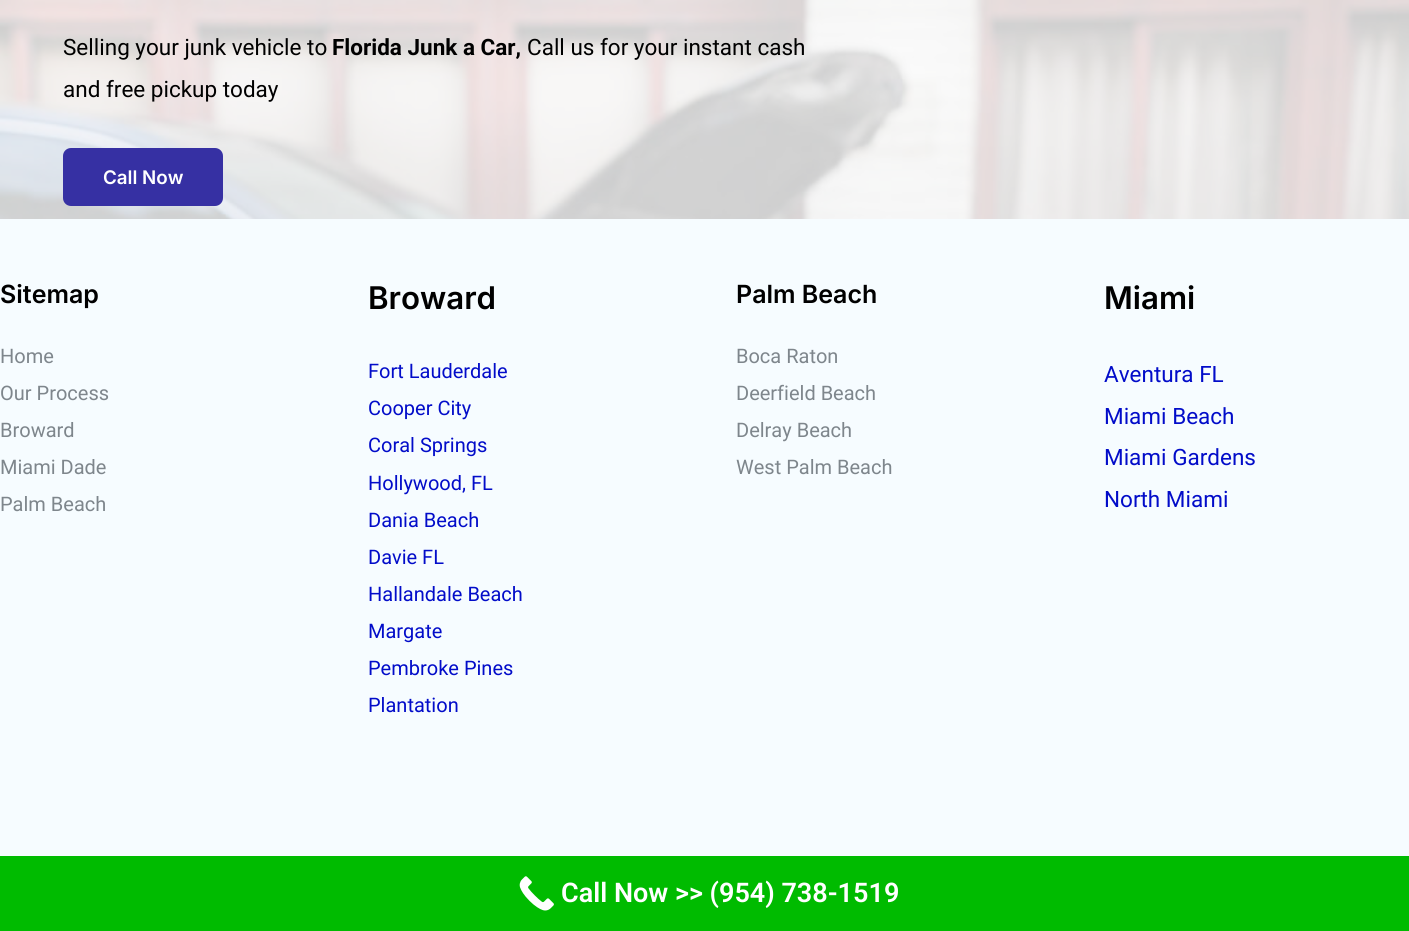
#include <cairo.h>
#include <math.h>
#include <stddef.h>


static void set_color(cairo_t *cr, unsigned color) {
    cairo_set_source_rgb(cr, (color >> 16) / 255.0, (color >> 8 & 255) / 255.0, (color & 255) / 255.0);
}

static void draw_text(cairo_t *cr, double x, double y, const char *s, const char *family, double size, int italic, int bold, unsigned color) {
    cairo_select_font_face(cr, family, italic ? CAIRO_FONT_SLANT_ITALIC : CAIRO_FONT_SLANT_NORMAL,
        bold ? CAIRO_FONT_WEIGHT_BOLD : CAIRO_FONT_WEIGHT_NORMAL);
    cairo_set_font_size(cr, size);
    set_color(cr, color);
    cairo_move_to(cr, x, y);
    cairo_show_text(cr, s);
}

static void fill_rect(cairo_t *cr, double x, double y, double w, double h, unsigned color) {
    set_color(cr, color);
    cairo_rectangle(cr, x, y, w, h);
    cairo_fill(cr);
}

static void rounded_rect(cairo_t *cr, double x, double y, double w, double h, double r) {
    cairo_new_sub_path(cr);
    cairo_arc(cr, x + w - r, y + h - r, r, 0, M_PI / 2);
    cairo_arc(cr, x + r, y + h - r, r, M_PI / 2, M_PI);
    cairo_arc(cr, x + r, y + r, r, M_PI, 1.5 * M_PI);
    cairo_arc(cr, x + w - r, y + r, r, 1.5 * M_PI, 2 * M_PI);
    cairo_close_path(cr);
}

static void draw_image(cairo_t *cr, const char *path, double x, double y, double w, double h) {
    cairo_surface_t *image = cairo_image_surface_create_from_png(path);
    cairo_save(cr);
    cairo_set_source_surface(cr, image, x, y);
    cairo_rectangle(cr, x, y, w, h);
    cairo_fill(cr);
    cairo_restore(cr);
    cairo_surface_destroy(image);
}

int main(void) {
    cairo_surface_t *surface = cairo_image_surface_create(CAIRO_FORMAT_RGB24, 1409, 931);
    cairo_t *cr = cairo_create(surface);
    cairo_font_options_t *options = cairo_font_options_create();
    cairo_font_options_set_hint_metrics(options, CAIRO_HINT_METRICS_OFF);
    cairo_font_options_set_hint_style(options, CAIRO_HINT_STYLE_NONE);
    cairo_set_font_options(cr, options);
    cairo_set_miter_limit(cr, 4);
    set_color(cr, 0xF6FCFF);
    cairo_paint(cr);
    draw_image(cr, "assets/img1.png", 0, 0, 1409, 219);
    draw_text(cr, 63, 55, "Selling your junk vehicle to", "Roboto", 22.5, 0, 0, 0x000000);
    draw_text(cr, 332, 55, "Florida Junk a Car,", "Roboto", 22.5, 0, 1, 0x000000);
    draw_text(cr, 527, 55, "Call us for your instant cash", "Roboto", 22.5, 0, 0, 0x000000);
    draw_text(cr, 63, 97, "and free pickup today", "Roboto", 22.5, 0, 0, 0x000000);
    set_color(cr, 0x3630A3);
    rounded_rect(cr, 63, 148, 160, 58, 8);
    cairo_fill(cr);
    draw_text(cr, 103, 184, "Call Now", "Inter SemiBold", 18.75, 0, 0, 0xFFFFFF);
    draw_text(cr, 0, 303, "Sitemap", "Inter SemiBold", 25, 0, 0, 0x000000);
    draw_text(cr, 0, 363, "Home", "Roboto", 20, 0, 0, 0x7E868C);
    draw_text(cr, 0, 400, "Our Process", "Roboto", 20, 0, 0, 0x7E868C);
    draw_text(cr, 0, 437, "Broward", "Roboto", 20, 0, 0, 0x7E868C);
    draw_text(cr, 0, 474, "Miami Dade", "Roboto", 20, 0, 0, 0x7E868C);
    draw_text(cr, 0, 511, "Palm Beach", "Roboto", 20, 0, 0, 0x7E868C);
    draw_text(cr, 368, 309, "Broward", "Inter SemiBold", 31.25, 0, 0, 0x000000);
    draw_text(cr, 368, 378, "Fort Lauderdale", "Roboto", 20, 0, 0, 0x020CC9);
    draw_text(cr, 368, 415, "Cooper City", "Roboto", 20, 0, 0, 0x020CC9);
    draw_text(cr, 368, 452, "Coral Springs", "Roboto", 20, 0, 0, 0x020CC9);
    draw_text(cr, 368, 490, "Hollywood, FL", "Roboto", 20, 0, 0, 0x020CC9);
    draw_text(cr, 368, 527, "Dania Beach", "Roboto", 20, 0, 0, 0x020CC9);
    draw_text(cr, 368, 564, "Davie FL", "Roboto", 20, 0, 0, 0x020CC9);
    draw_text(cr, 368, 601, "Hallandale Beach", "Roboto", 20, 0, 0, 0x020CC9);
    draw_text(cr, 368, 638, "Margate", "Roboto", 20, 0, 0, 0x020CC9);
    draw_text(cr, 368, 675, "Pembroke Pines", "Roboto", 20, 0, 0, 0x020CC9);
    draw_text(cr, 368, 712, "Plantation", "Roboto", 20, 0, 0, 0x020CC9);
    draw_text(cr, 736, 303, "Palm Beach", "Inter SemiBold", 25, 0, 0, 0x000000);
    draw_text(cr, 736, 363, "Boca Raton", "Roboto", 20, 0, 0, 0x7E868C);
    draw_text(cr, 736, 400, "Deerfield Beach", "Roboto", 20, 0, 0, 0x7E868C);
    draw_text(cr, 736, 437, "Delray Beach", "Roboto", 20, 0, 0, 0x7E868C);
    draw_text(cr, 736, 474, "West Palm Beach", "Roboto", 20, 0, 0, 0x7E868C);
    draw_text(cr, 1104, 309, "Miami", "Inter SemiBold", 31.25, 0, 0, 0x000000);
    draw_text(cr, 1104, 382, "Aventura FL", "Roboto", 22.5, 0, 0, 0x020CC9);
    draw_text(cr, 1104, 424, "Miami Beach", "Roboto", 22.5, 0, 0, 0x020CC9);
    draw_text(cr, 1104, 465, "Miami Gardens", "Roboto", 22.5, 0, 0, 0x020CC9);
    draw_text(cr, 1104, 507, "North Miami", "Roboto", 22.5, 0, 0, 0x020CC9);
    fill_rect(cr, 0, 856, 1409, 75, 0x00BB00);
    draw_image(cr, "assets/img2.png", 519, 876, 35, 35);
    draw_text(cr, 561, 902, "Call Now >> (954) 738-1519", "Roboto SemiBold", 27, 0, 0, 0xFFFFFF);
    cairo_surface_write_to_png(surface, "output.png");
    cairo_font_options_destroy(options);
    cairo_destroy(cr);
    cairo_surface_destroy(surface);
    return 0;
}
